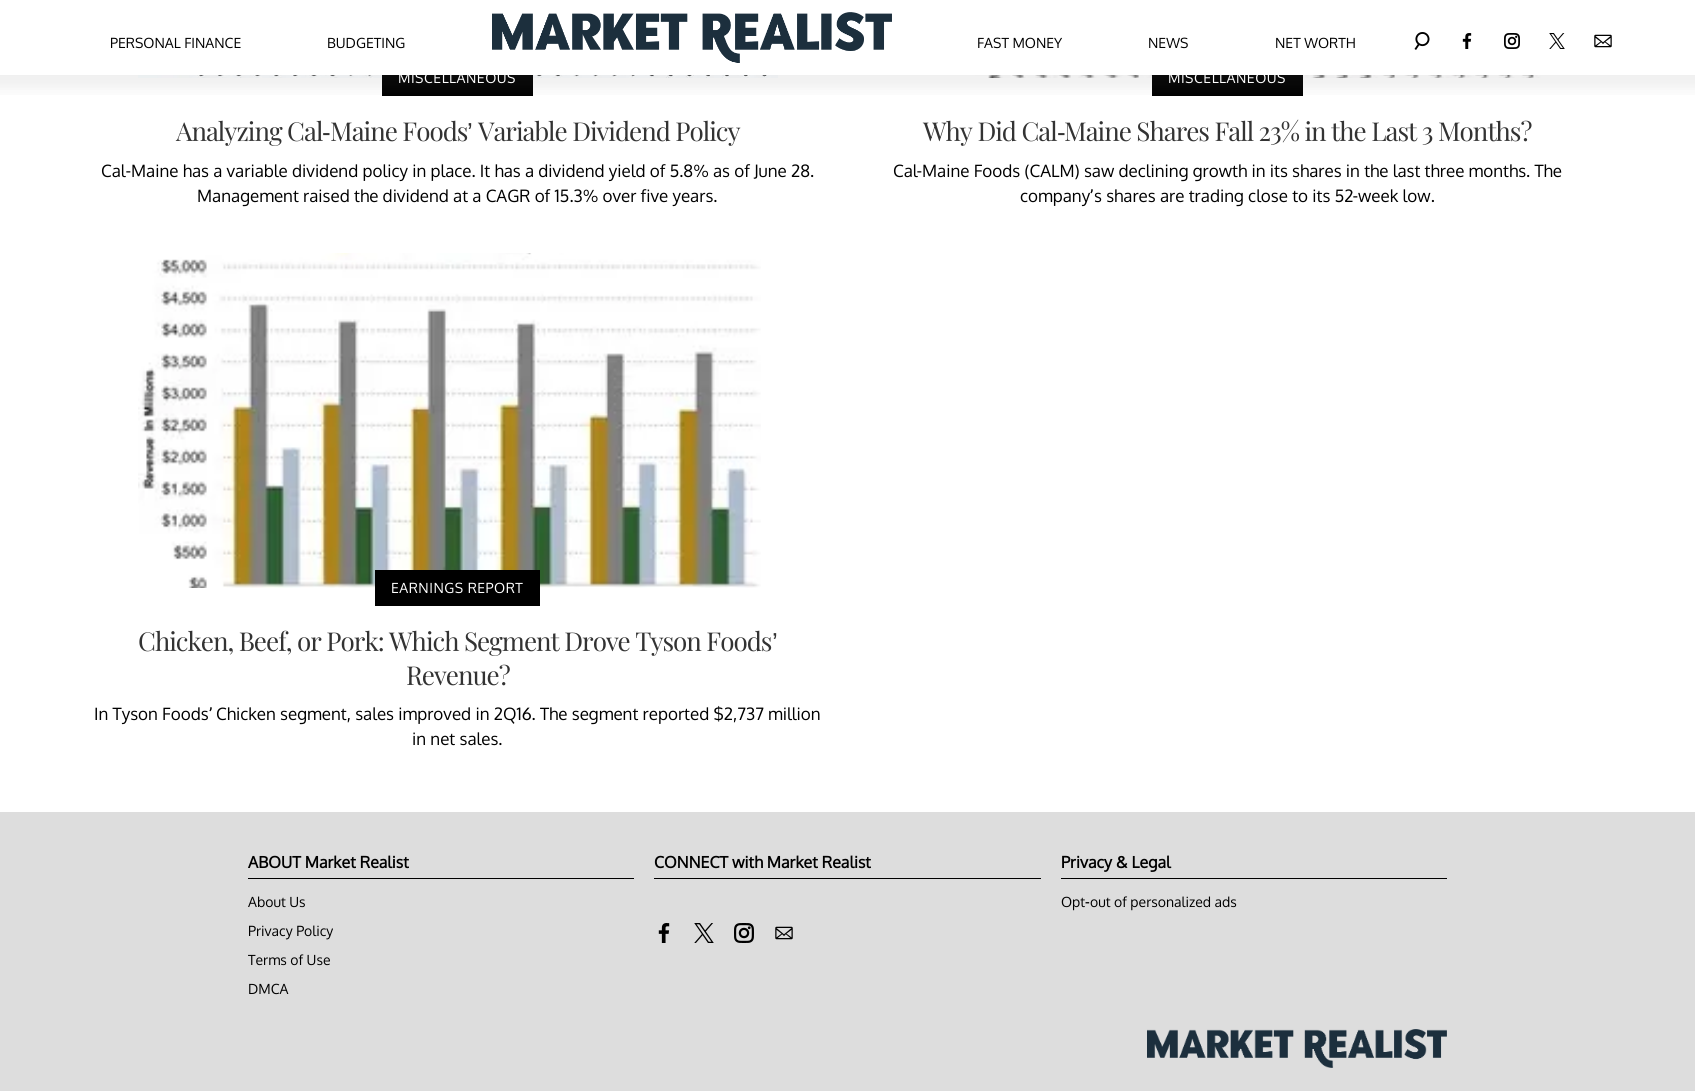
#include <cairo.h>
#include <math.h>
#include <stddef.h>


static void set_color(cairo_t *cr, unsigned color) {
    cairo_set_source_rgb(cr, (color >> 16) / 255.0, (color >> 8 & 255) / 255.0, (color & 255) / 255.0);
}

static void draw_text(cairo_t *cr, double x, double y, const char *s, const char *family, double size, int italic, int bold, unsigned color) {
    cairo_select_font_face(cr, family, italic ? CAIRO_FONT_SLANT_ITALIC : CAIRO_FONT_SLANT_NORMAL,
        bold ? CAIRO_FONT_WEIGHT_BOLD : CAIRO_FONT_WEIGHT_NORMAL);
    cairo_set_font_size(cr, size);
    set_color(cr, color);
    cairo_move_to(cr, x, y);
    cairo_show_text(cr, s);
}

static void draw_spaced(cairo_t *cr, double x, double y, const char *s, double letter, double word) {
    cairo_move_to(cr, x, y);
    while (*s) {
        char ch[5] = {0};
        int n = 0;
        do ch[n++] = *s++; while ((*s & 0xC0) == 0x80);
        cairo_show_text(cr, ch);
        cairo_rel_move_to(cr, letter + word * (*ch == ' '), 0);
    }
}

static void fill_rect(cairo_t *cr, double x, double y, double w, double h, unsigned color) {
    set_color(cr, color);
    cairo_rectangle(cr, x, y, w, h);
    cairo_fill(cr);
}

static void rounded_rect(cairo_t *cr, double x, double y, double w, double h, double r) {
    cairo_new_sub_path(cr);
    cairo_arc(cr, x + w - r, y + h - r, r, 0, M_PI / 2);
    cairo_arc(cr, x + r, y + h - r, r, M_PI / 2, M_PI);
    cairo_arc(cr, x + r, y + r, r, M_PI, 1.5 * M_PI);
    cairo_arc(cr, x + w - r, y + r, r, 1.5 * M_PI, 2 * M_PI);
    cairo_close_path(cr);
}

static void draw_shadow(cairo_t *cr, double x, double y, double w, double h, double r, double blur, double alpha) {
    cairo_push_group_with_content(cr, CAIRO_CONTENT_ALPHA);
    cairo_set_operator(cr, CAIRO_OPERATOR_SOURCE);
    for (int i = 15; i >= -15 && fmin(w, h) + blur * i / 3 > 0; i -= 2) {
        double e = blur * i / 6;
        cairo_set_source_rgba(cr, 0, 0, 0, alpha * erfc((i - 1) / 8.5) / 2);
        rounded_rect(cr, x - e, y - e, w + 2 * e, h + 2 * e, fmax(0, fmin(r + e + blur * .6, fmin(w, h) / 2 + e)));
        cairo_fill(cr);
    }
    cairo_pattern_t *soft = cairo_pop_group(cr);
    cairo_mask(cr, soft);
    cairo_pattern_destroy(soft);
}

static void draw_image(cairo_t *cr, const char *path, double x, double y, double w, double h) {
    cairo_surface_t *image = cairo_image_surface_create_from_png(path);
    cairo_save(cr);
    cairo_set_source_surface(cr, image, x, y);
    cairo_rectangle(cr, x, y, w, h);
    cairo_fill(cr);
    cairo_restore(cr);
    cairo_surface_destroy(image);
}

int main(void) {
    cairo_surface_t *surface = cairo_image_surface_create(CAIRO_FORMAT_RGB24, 1695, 1091);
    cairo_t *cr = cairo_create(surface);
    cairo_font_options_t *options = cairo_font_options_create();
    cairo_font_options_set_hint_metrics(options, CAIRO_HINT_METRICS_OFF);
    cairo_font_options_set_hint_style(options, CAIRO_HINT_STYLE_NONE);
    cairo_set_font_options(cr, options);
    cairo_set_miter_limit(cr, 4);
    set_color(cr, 0xFFFFFF);
    cairo_paint(cr);
    draw_image(cr, "assets/img7.png", 138, 75, 640, 3);
    fill_rect(cr, 382, 75, 151, 21, 0x000000);
    draw_image(cr, "assets/img8.png", 917, 75, 624, 3);
    fill_rect(cr, 1152, 75, 151, 21, 0x000000);
    cairo_save(cr);
    cairo_rectangle(cr, 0, 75, 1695, 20);
    cairo_clip(cr);
    set_color(cr, 0x666666);
    draw_shadow(cr, -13, -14, 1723, 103, 0, 7, 0.1);
    cairo_restore(cr);
    draw_text(cr, 110, 48, "PERSONAL FINANCE", "Oxygen", 14, 0, 0, 0x000000);
    draw_text(cr, 327, 48, "BUDGETING", "Oxygen", 14, 0, 0, 0x000000);
    draw_image(cr, "assets/img1.png", 492, 12, 400, 51);
    draw_text(cr, 977, 48, "FAST MONEY", "Oxygen", 14, 0, 0, 0x000000);
    draw_text(cr, 1148, 48, "NEWS", "Oxygen", 14, 0, 0, 0x000000);
    draw_text(cr, 1275, 48, "NET WORTH", "Oxygen", 14, 0, 0, 0x000000);
    draw_image(cr, "assets/img2.png", 1414, 32, 16, 18);
    draw_image(cr, "assets/img3.png", 1462, 33, 10, 16);
    draw_image(cr, "assets/img4.png", 1504, 33, 16, 16);
    draw_image(cr, "assets/img5.png", 1549, 33, 16, 16);
    draw_image(cr, "assets/img6.png", 1594, 34, 18, 14);
    set_color(cr, 0xFFFFFF);
    draw_spaced(cr, 398, 83, "MISCELLANEOUS", 0.5, 0);
    cairo_select_font_face(cr, "Playfair Display", CAIRO_FONT_SLANT_NORMAL, CAIRO_FONT_WEIGHT_NORMAL);
    cairo_set_font_size(cr, 26);
    set_color(cr, 0x333333);
    draw_spaced(cr, 176, 141, "Analyzing Cal", -1, 0);
    draw_spaced(cr, 330, 141, "Maine Foods", -1, 0);
    cairo_select_font_face(cr, "Liberation Sans", CAIRO_FONT_SLANT_NORMAL, CAIRO_FONT_WEIGHT_NORMAL);
    draw_spaced(cr, 467, 141, "’", -1, 0);
    cairo_select_font_face(cr, "Playfair Display", CAIRO_FONT_SLANT_NORMAL, CAIRO_FONT_WEIGHT_NORMAL);
    draw_spaced(cr, 478, 141, "Variable Dividend Policy", -1, 0);
    cairo_select_font_face(cr, "Liberation Sans", CAIRO_FONT_SLANT_NORMAL, CAIRO_FONT_WEIGHT_NORMAL);
    draw_spaced(cr, 322, 141, "-", -1, 0);
    draw_text(cr, 101, 177, "Cal", "Oxygen", 17, 0, 0, 0x000000);
    draw_text(cr, 126, 177, "-", "Roboto", 17, 0, 0, 0x000000);
    draw_text(cr, 131, 177, "Maine has a variable dividend policy in place. It has a dividend yield of 5.8% as of June 28.", "Oxygen", 17, 0, 0, 0x000000);
    draw_text(cr, 197, 202, "Management raised the dividend at a CAGR of 15.3% over five years.", "Oxygen", 17, 0, 0, 0x000000);
    cairo_set_font_size(cr, 14);
    set_color(cr, 0xFFFFFF);
    draw_spaced(cr, 1168, 83, "MISCELLANEOUS", 0.5, 0);
    cairo_select_font_face(cr, "Playfair Display", CAIRO_FONT_SLANT_NORMAL, CAIRO_FONT_WEIGHT_NORMAL);
    cairo_set_font_size(cr, 26);
    set_color(cr, 0x333333);
    draw_spaced(cr, 923, 141, "Why Did Cal", -1, 0);
    cairo_select_font_face(cr, "Liberation Sans", CAIRO_FONT_SLANT_NORMAL, CAIRO_FONT_WEIGHT_NORMAL);
    draw_spaced(cr, 1057, 141, "-", -1, 0);
    cairo_select_font_face(cr, "Playfair Display", CAIRO_FONT_SLANT_NORMAL, CAIRO_FONT_WEIGHT_NORMAL);
    draw_spaced(cr, 1064, 141, "Maine Shares Fall 23% in the Last 3 Months?", -1, 0);
    draw_text(cr, 893, 177, "Cal", "Oxygen", 17, 0, 0, 0x000000);
    draw_text(cr, 917, 177, "-", "Roboto", 17, 0, 0, 0x000000);
    draw_text(cr, 922, 177, "Maine Foods (CALM) saw declining growth in its shares in the last three months. The", "Oxygen", 17, 0, 0, 0x000000);
    draw_text(cr, 1020, 202, "company", "Oxygen", 17, 0, 0, 0x000000);
    draw_text(cr, 1090, 202, "’", "Roboto", 17, 0, 0, 0x000000);
    draw_text(cr, 1094, 202, "s shares are trading close to its 52", "Oxygen", 17, 0, 0, 0x000000);
    draw_text(cr, 1353, 202, "-", "Roboto", 17, 0, 0, 0x000000);
    draw_text(cr, 1358, 202, "week low.", "Oxygen", 17, 0, 0, 0x000000);
    draw_image(cr, "assets/img9.png", 138, 253, 623, 335);
    fill_rect(cr, 375, 570, 165, 36, 0x000000);
    cairo_set_font_size(cr, 14);
    set_color(cr, 0xFFFFFF);
    draw_spaced(cr, 391, 593, "EARNINGS REPORT", 0.5, 0);
    cairo_select_font_face(cr, "Playfair Display", CAIRO_FONT_SLANT_NORMAL, CAIRO_FONT_WEIGHT_NORMAL);
    cairo_set_font_size(cr, 26);
    set_color(cr, 0x333333);
    draw_spaced(cr, 138, 651, "Chicken, Beef, or Pork: Which Segment Drove Tyson Foods", -1, 0);
    cairo_select_font_face(cr, "Liberation Sans", CAIRO_FONT_SLANT_NORMAL, CAIRO_FONT_WEIGHT_NORMAL);
    draw_spaced(cr, 772, 651, "’", -1, 0);
    cairo_select_font_face(cr, "Playfair Display", CAIRO_FONT_SLANT_NORMAL, CAIRO_FONT_WEIGHT_NORMAL);
    draw_spaced(cr, 406, 685, "Revenue?", -1, 0);
    draw_text(cr, 94, 720, "In Tyson Foods", "Oxygen", 17, 0, 0, 0x000000);
    draw_text(cr, 209, 720, "’", "Roboto", 17, 0, 0, 0x000000);
    draw_text(cr, 216, 720, "Chicken segment, sales improved in 2Q16. The segment reported $2,737 million", "Oxygen", 17, 0, 0, 0x000000);
    draw_text(cr, 412, 745, "in net sales.", "Oxygen", 17, 0, 0, 0x000000);
    fill_rect(cr, 0, 812, 1695, 279, 0xDDDDDD);
    fill_rect(cr, 248, 878, 386, 1, 0x000000);
    draw_text(cr, 248, 868, "ABOUT Market Realist", "Oxygen", 16, 0, 1, 0x000000);
    draw_text(cr, 248, 907, "About Us", "Oxygen", 14, 0, 0, 0x000000);
    draw_text(cr, 248, 936, "Privacy Policy", "Oxygen", 14, 0, 0, 0x000000);
    draw_text(cr, 248, 965, "Terms of Use", "Oxygen", 14, 0, 0, 0x000000);
    draw_text(cr, 248, 994, "DMCA", "Oxygen", 14, 0, 0, 0x000000);
    fill_rect(cr, 654, 878, 387, 1, 0x000000);
    draw_text(cr, 654, 868, "CONNECT with Market Realist", "Oxygen", 16, 0, 1, 0x000000);
    draw_image(cr, "assets/img10.png", 658, 923, 12, 20);
    draw_image(cr, "assets/img11.png", 694, 923, 20, 20);
    draw_image(cr, "assets/img12.png", 734, 923, 20, 20);
    draw_image(cr, "assets/img13.png", 775, 926, 18, 14);
    fill_rect(cr, 1061, 878, 386, 1, 0x000000);
    draw_text(cr, 1061, 868, "Privacy & Legal", "Oxygen", 16, 0, 1, 0x000000);
    draw_text(cr, 1061, 907, "Opt", "Oxygen", 14, 0, 0, 0x000000);
    draw_text(cr, 1085, 907, "-", "Roboto Medium", 14, 0, 0, 0x000000);
    draw_text(cr, 1090, 907, "out of personalized ads", "Oxygen", 14, 0, 0, 0x000000);
    draw_image(cr, "assets/img14.png", 1147, 1029, 300, 39);
    cairo_surface_write_to_png(surface, "output.png");
    cairo_font_options_destroy(options);
    cairo_destroy(cr);
    cairo_surface_destroy(surface);
    return 0;
}
